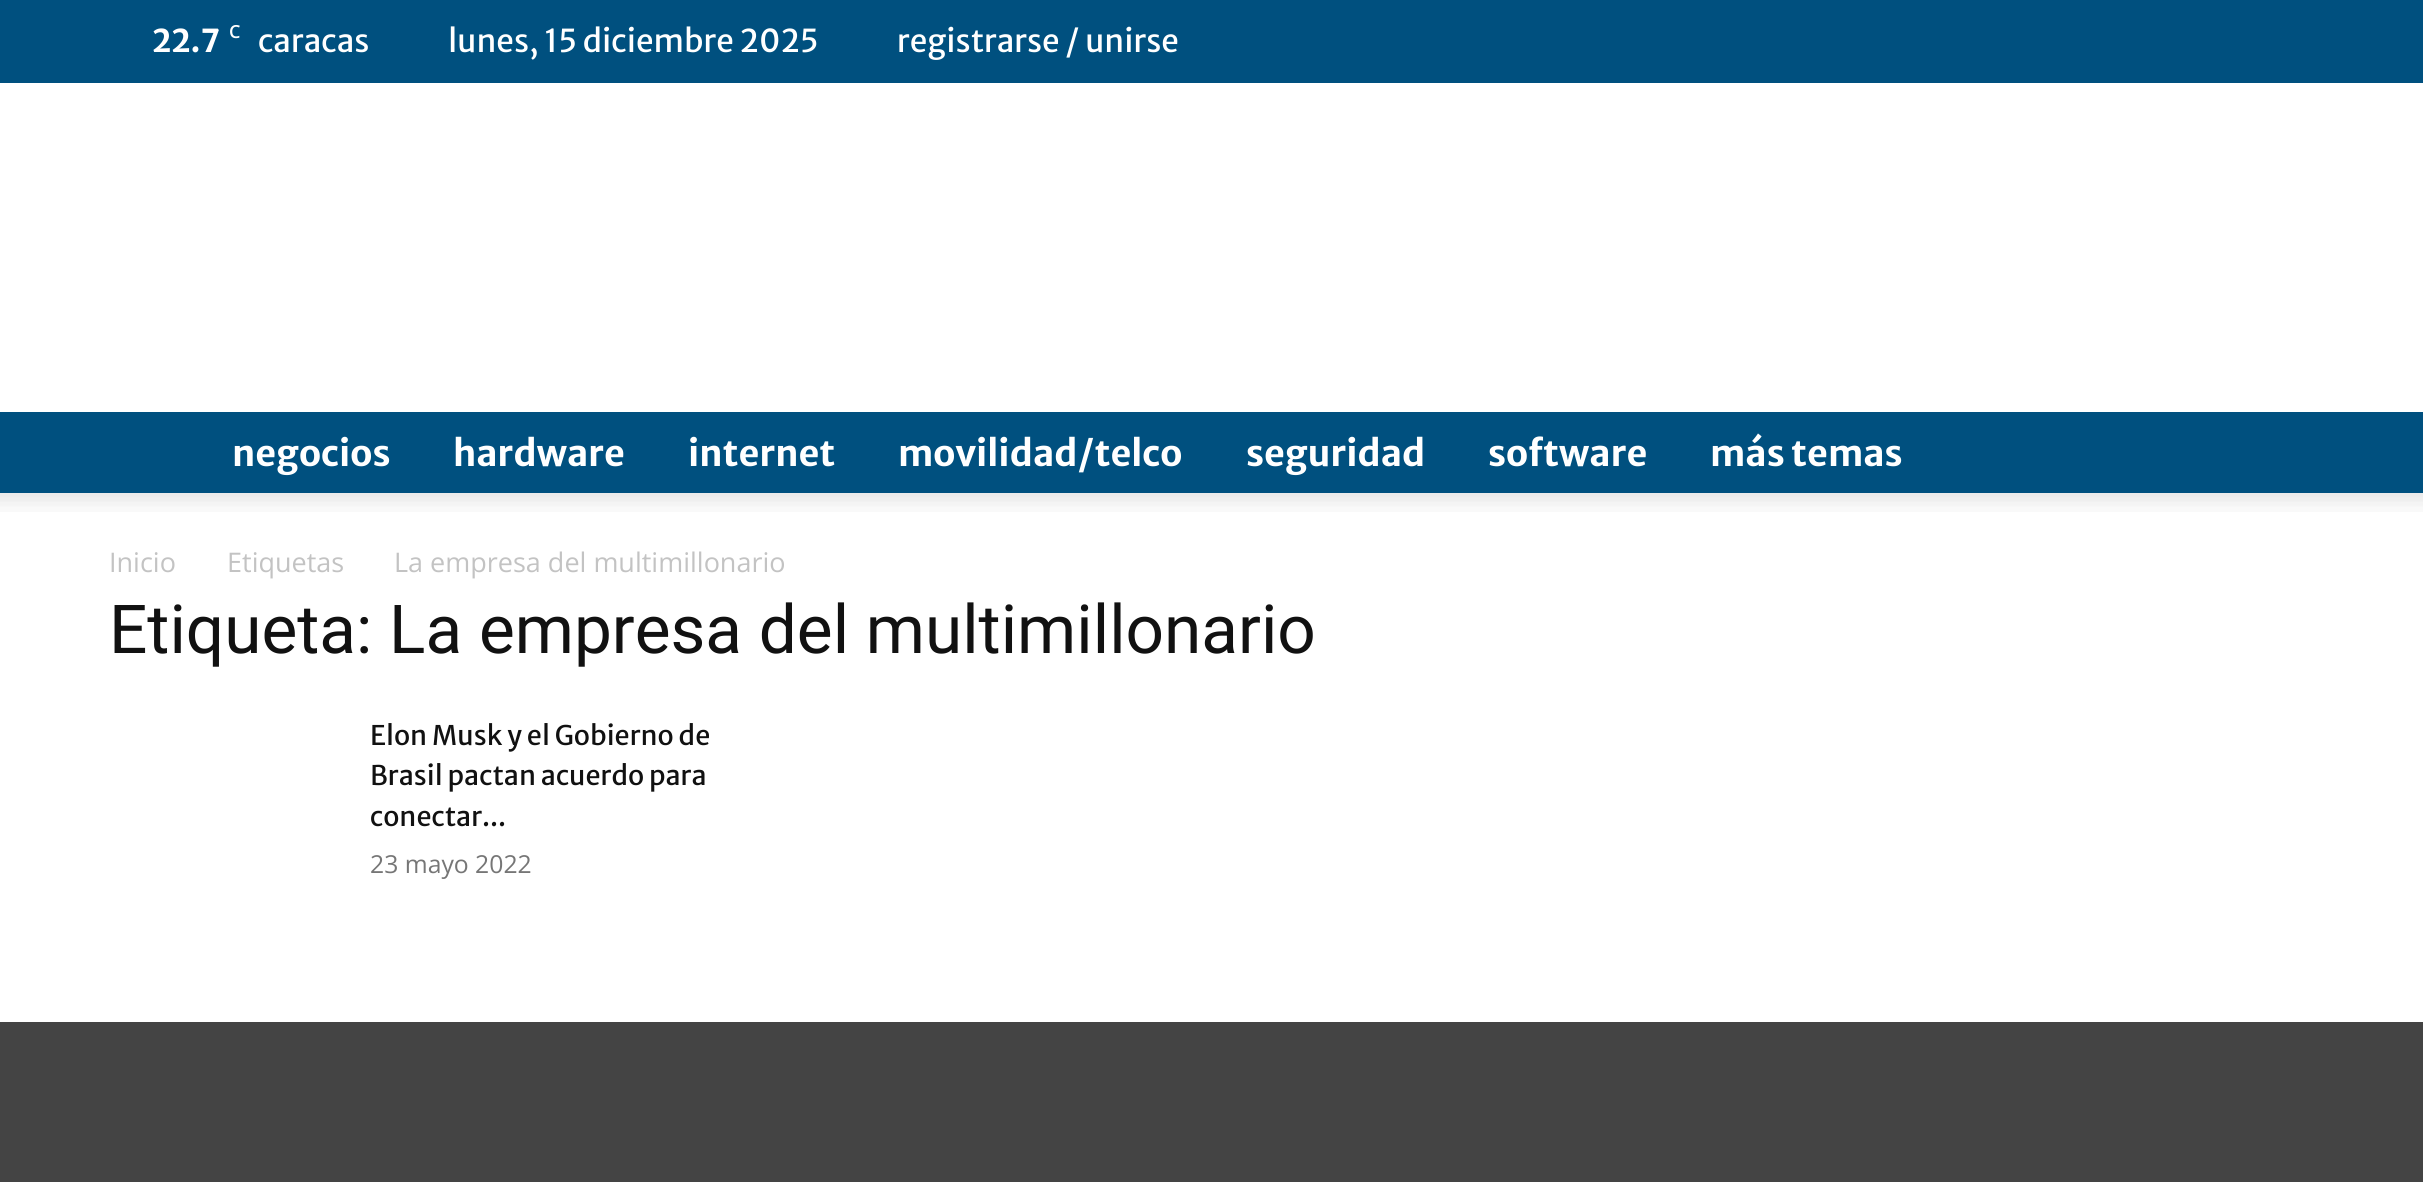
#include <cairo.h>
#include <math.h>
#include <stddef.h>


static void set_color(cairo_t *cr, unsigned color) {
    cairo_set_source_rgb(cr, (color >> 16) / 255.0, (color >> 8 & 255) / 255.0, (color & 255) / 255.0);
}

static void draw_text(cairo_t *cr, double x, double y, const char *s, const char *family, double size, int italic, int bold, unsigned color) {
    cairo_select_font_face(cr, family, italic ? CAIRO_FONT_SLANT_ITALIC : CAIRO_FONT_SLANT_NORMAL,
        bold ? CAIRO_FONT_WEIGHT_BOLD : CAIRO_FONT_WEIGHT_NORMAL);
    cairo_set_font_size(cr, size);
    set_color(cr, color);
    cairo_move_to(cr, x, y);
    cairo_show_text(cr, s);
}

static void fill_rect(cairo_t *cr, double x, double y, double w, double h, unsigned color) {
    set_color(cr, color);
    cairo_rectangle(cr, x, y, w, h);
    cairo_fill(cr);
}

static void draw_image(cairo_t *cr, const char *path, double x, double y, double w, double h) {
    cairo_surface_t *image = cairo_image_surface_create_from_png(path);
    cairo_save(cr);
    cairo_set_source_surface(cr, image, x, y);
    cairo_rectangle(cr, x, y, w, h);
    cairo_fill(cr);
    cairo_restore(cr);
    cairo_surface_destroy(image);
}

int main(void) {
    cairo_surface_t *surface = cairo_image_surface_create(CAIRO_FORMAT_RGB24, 2423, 1182);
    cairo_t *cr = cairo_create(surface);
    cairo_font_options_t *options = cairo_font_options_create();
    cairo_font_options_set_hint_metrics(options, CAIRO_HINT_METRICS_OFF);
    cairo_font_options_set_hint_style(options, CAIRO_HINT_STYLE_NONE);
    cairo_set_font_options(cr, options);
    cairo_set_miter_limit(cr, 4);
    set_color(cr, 0xFFFFFF);
    cairo_paint(cr);
    fill_rect(cr, 0, 0, 2423, 83, 0x00507F);
    draw_text(cr, 152, 52, "22.7", "Merriweather Sans", 31.5, 0, 1, 0xFFFFFF);
    draw_text(cr, 229, 38, "C", "Open Sans SemiBold", 18, 0, 0, 0xFFFFFF);
    draw_text(cr, 258, 52, "caracas", "Merriweather Sans", 31.5, 0, 0, 0xFFFFFF);
    draw_text(cr, 448, 52, "lunes, 15 diciembre 2025", "Merriweather Sans", 31.5, 0, 0, 0xFFFFFF);
    draw_text(cr, 897, 52, "registrarse / unirse", "Merriweather Sans", 31.5, 0, 0, 0xFFFFFF);
    fill_rect(cr, 0, 412, 2423, 81, 0x00507F);
    draw_text(cr, 232, 466, "negocios", "Merriweather Sans", 36, 0, 1, 0xFFFFFF);
    draw_text(cr, 453, 466, "hardware", "Merriweather Sans", 36, 0, 1, 0xFFFFFF);
    draw_text(cr, 688, 466, "internet", "Merriweather Sans", 36, 0, 1, 0xFFFFFF);
    draw_text(cr, 898, 466, "movilidad/telco", "Merriweather Sans", 36, 0, 1, 0xFFFFFF);
    draw_text(cr, 1246, 466, "seguridad", "Merriweather Sans", 36, 0, 1, 0xFFFFFF);
    draw_text(cr, 1488, 466, "software", "Merriweather Sans", 36, 0, 1, 0xFFFFFF);
    draw_text(cr, 1710, 466, "más temas", "Merriweather Sans", 36, 0, 1, 0xFFFFFF);
    draw_image(cr, "assets/img1.png", 0, 493, 2423, 19);
    draw_text(cr, 109, 572, "Inicio", "Open Sans", 27, 0, 0, 0xC3C3C3);
    draw_text(cr, 227, 572, "Etiquetas", "Open Sans", 27, 0, 0, 0xC3C3C3);
    draw_text(cr, 394, 572, "La empresa del multimillonario", "Open Sans", 27, 0, 0, 0xC3C3C3);
    draw_text(cr, 109, 653, "Etiqueta: La empresa del multimillonario", "Roboto", 67.5, 0, 0, 0x111111);
    draw_text(cr, 370, 745, "Elon Musk y el Gobierno de", "Merriweather Sans", 27, 0, 0, 0x111111);
    draw_text(cr, 370, 785, "Brasil pactan acuerdo para", "Merriweather Sans", 27, 0, 0, 0x111111);
    draw_text(cr, 370, 826, "conectar...", "Merriweather Sans", 27, 0, 0, 0x111111);
    draw_text(cr, 370, 873, "23 mayo 2022", "Open Sans", 24.75, 0, 0, 0x767676);
    fill_rect(cr, 0, 1022, 2423, 160, 0x444444);
    cairo_surface_write_to_png(surface, "output.png");
    cairo_font_options_destroy(options);
    cairo_destroy(cr);
    cairo_surface_destroy(surface);
    return 0;
}
